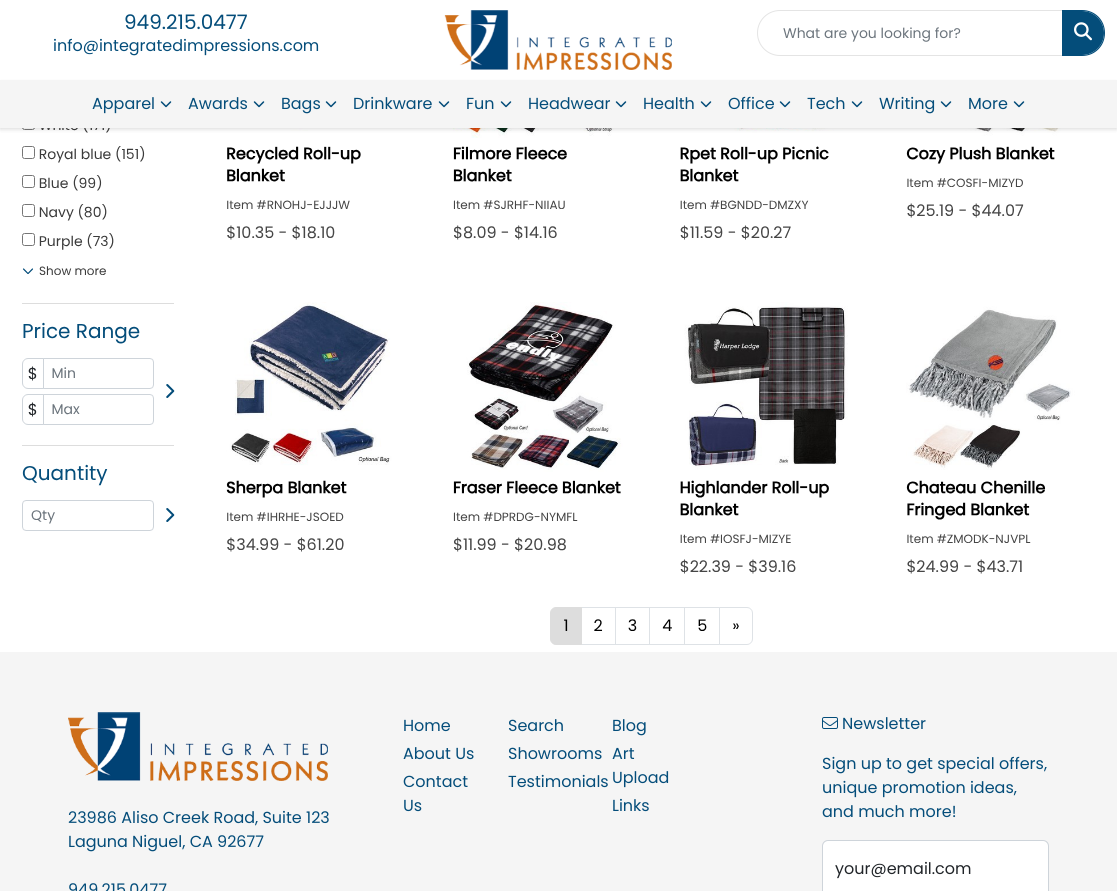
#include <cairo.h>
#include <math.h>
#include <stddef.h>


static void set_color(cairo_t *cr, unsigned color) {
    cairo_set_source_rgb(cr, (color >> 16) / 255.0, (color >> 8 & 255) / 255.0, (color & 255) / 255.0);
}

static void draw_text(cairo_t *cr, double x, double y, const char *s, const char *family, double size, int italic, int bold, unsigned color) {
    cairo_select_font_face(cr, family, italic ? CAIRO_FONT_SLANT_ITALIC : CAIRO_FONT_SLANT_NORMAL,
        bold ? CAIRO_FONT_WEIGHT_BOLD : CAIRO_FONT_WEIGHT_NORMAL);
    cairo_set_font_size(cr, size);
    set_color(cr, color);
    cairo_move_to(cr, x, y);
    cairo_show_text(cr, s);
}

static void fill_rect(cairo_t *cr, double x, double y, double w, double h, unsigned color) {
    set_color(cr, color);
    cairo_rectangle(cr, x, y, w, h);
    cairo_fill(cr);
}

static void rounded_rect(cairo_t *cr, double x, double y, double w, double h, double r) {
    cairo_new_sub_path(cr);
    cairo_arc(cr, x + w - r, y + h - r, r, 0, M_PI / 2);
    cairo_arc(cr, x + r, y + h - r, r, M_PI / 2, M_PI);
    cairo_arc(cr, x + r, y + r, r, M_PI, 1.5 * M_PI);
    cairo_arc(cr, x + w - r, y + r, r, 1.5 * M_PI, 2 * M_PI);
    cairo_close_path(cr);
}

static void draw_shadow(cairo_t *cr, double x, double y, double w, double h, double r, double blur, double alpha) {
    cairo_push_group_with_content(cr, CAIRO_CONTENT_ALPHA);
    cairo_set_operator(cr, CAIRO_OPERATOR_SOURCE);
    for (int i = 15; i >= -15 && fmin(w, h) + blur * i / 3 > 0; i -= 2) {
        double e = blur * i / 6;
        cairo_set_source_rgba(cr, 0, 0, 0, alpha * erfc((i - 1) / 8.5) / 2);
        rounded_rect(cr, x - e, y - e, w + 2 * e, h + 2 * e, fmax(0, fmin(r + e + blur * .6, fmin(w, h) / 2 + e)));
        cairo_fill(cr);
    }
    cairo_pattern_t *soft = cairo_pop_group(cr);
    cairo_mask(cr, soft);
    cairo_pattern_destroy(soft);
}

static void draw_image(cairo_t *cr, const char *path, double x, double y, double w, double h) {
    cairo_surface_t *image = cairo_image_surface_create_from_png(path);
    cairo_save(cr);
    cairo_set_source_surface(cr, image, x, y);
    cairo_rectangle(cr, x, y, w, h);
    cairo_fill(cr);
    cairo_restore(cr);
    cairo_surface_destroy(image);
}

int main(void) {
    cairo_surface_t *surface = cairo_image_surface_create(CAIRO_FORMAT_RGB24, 1117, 891);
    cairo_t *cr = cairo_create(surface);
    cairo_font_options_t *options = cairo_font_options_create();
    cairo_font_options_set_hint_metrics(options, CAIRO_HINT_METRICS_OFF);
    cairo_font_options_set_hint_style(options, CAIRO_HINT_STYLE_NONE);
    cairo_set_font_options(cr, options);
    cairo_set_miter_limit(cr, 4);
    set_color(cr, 0xFFFFFF);
    cairo_paint(cr);
    draw_image(cr, "assets/img4.png", 22, 128, 1053, 517);
    set_color(cr, 0x000000);
    draw_shadow(cr, 0, 0, 1117, 128, 0, 2.5, 0.1);
    fill_rect(cr, 0, 0, 1117, 80, 0xFFFFFF);
    draw_text(cr, 124, 29, "949.215.0477", "Poppins", 20, 0, 0, 0x044D7A);
    draw_text(cr, 53, 51, "info@integratedimpressions.com", "Poppins", 16, 0, 0, 0x044D7A);
    draw_image(cr, "assets/img1.png", 444, 10, 228, 60);
    cairo_new_path(cr);
    cairo_move_to(cr, 780, 10.5);
    cairo_line_to(cr, 1062.5, 10.5);
    cairo_line_to(cr, 1062.5, 55.5);
    cairo_line_to(cr, 780, 55.5);
    cairo_curve_to(cr, 767.5, 55.5, 757.5, 45.5, 757.5, 33);
    cairo_curve_to(cr, 757.5, 20.5, 767.5, 10.5, 780, 10.5);
    cairo_close_path(cr);
    set_color(cr, 0xE4E4E4);
    cairo_set_line_width(cr, 1);
    cairo_stroke(cr);
    draw_text(cr, 783, 38, "What are you looking for?", "Poppins", 14, 0, 0, 0x6C757D);
    set_color(cr, 0x044D7A);
    cairo_new_path(cr);
    cairo_move_to(cr, 1062, 11);
    cairo_line_to(cr, 1082, 11);
    cairo_curve_to(cr, 1094, 11, 1104, 21, 1104, 33);
    cairo_curve_to(cr, 1104, 45, 1094, 55, 1082, 55);
    cairo_line_to(cr, 1062, 55);
    cairo_close_path(cr);
    cairo_fill(cr);
    cairo_set_fill_rule(cr, CAIRO_FILL_RULE_EVEN_ODD);
    cairo_new_path(cr);
    cairo_move_to(cr, 1062, 10);
    cairo_line_to(cr, 1082, 10);
    cairo_curve_to(cr, 1095, 10, 1105, 20, 1105, 33);
    cairo_curve_to(cr, 1105, 46, 1095, 56, 1082, 56);
    cairo_line_to(cr, 1062, 56);
    cairo_close_path(cr);
    cairo_move_to(cr, 1062, 11);
    cairo_line_to(cr, 1082, 11);
    cairo_curve_to(cr, 1094, 11, 1104, 21, 1104, 33);
    cairo_curve_to(cr, 1104, 45, 1094, 55, 1082, 55);
    cairo_line_to(cr, 1062, 55);
    cairo_close_path(cr);
    cairo_fill(cr);
    draw_image(cr, "assets/img2.png", 1074, 22, 18, 19);
    set_color(cr, 0x000000);
    draw_shadow(cr, 0, 82, 1117, 48, 0, 2, 0.07);
    fill_rect(cr, 0, 80, 1117, 48, 0xF5F5F5);
    draw_text(cr, 92, 109, "Apparel", "Poppins", 16, 0, 0, 0x044D7A);
    draw_image(cr, "assets/img3.png", 160, 101, 12, 7);
    draw_text(cr, 188, 109, "Awards", "Poppins", 16, 0, 0, 0x044D7A);
    draw_image(cr, "assets/img3.png", 253, 101, 12, 7);
    draw_text(cr, 281, 109, "Bags", "Poppins", 16, 0, 0, 0x044D7A);
    draw_image(cr, "assets/img3.png", 325, 101, 12, 7);
    draw_text(cr, 353, 109, "Drinkware", "Poppins", 16, 0, 0, 0x044D7A);
    draw_image(cr, "assets/img3.png", 438, 101, 12, 7);
    draw_text(cr, 466, 109, "Fun", "Poppins", 16, 0, 0, 0x044D7A);
    draw_image(cr, "assets/img3.png", 500, 101, 12, 7);
    draw_text(cr, 528, 109, "Headwear", "Poppins", 16, 0, 0, 0x044D7A);
    draw_image(cr, "assets/img3.png", 615, 101, 12, 7);
    draw_text(cr, 643, 109, "Health", "Poppins", 16, 0, 0, 0x044D7A);
    draw_image(cr, "assets/img3.png", 700, 101, 12, 7);
    draw_text(cr, 728, 109, "Office", "Poppins", 16, 0, 0, 0x044D7A);
    draw_image(cr, "assets/img3.png", 779, 101, 12, 7);
    draw_text(cr, 807, 109, "Tech", "Poppins", 16, 0, 0, 0x044D7A);
    draw_image(cr, "assets/img3.png", 851, 101, 12, 7);
    draw_text(cr, 879, 109, "Writing", "Poppins", 16, 0, 0, 0x044D7A);
    draw_image(cr, "assets/img3.png", 940, 101, 12, 7);
    draw_text(cr, 968, 109, "More", "Poppins", 16, 0, 0, 0x044D7A);
    draw_image(cr, "assets/img3.png", 1013, 101, 12, 7);
    fill_rect(cr, 0, 652, 1117, 239, 0xF5F5F5);
    draw_text(cr, 403, 731, "Home", "Poppins", 16, 0, 0, 0x044D7A);
    draw_text(cr, 403, 759, "About Us", "Poppins", 16, 0, 0, 0x044D7A);
    draw_text(cr, 403, 787, "Contact", "Poppins", 16, 0, 0, 0x044D7A);
    draw_text(cr, 403, 811, "Us", "Poppins", 16, 0, 0, 0x044D7A);
    draw_text(cr, 508, 731, "Search", "Poppins", 16, 0, 0, 0x044D7A);
    draw_text(cr, 508, 759, "Showrooms", "Poppins", 16, 0, 0, 0x044D7A);
    draw_text(cr, 508, 787, "Testimonials", "Poppins", 16, 0, 0, 0x044D7A);
    draw_text(cr, 612, 731, "Blog", "Poppins", 16, 0, 0, 0x044D7A);
    draw_text(cr, 612, 759, "Art", "Poppins", 16, 0, 0, 0x044D7A);
    draw_text(cr, 612, 783, "Upload", "Poppins", 16, 0, 0, 0x044D7A);
    draw_text(cr, 612, 811, "Links", "Poppins", 16, 0, 0, 0x044D7A);
    draw_image(cr, "assets/img5.png", 822, 717, 16, 12);
    draw_text(cr, 842, 729, "Newsletter", "Poppins", 16, 0, 0, 0x044D7A);
    draw_text(cr, 822, 769, "Sign up to get special offers,", "Poppins", 16, 0, 0, 0x044D7A);
    draw_text(cr, 822, 793, "unique promotion ideas,", "Poppins", 16, 0, 0, 0x044D7A);
    draw_text(cr, 822, 817, "and much more!", "Poppins", 16, 0, 0, 0x044D7A);
    set_color(cr, 0xFFFFFF);
    rounded_rect(cr, 823, 841, 225, 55, 5);
    cairo_fill(cr);
    rounded_rect(cr, 822.5, 840.5, 226, 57, 5.5);
    set_color(cr, 0xCED4DA);
    cairo_stroke(cr);
    draw_text(cr, 835, 874, "your@email.com", "Poppins", 16, 0, 0, 0x212529);
    draw_image(cr, "assets/img6.png", 68, 712, 260, 69);
    draw_text(cr, 68, 823, "23986 Aliso Creek Road, Suite 123", "Poppins", 16, 0, 0, 0x044D7A);
    draw_text(cr, 68, 847, "Laguna Niguel, CA 92677", "Poppins", 16, 0, 0, 0x044D7A);
    draw_text(cr, 68, 895, "949.215.0477", "Poppins", 16, 0, 0, 0x044D7A);
    cairo_surface_write_to_png(surface, "output.png");
    cairo_font_options_destroy(options);
    cairo_destroy(cr);
    cairo_surface_destroy(surface);
    return 0;
}
